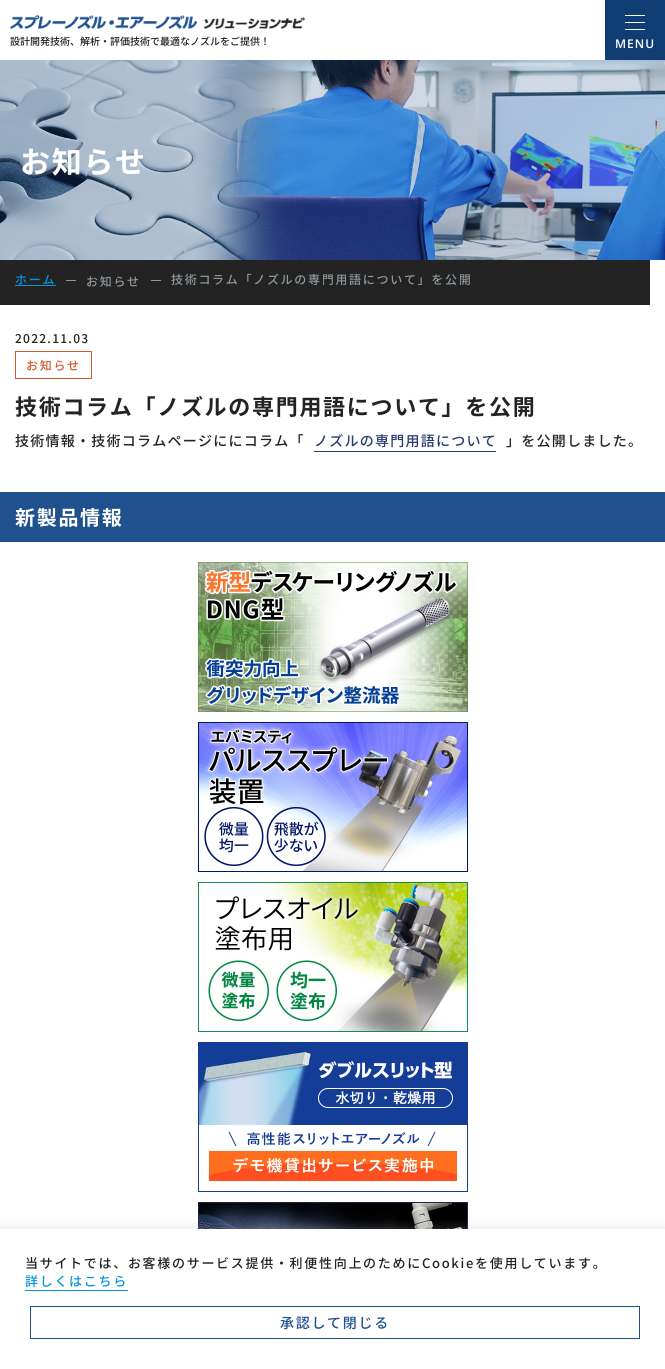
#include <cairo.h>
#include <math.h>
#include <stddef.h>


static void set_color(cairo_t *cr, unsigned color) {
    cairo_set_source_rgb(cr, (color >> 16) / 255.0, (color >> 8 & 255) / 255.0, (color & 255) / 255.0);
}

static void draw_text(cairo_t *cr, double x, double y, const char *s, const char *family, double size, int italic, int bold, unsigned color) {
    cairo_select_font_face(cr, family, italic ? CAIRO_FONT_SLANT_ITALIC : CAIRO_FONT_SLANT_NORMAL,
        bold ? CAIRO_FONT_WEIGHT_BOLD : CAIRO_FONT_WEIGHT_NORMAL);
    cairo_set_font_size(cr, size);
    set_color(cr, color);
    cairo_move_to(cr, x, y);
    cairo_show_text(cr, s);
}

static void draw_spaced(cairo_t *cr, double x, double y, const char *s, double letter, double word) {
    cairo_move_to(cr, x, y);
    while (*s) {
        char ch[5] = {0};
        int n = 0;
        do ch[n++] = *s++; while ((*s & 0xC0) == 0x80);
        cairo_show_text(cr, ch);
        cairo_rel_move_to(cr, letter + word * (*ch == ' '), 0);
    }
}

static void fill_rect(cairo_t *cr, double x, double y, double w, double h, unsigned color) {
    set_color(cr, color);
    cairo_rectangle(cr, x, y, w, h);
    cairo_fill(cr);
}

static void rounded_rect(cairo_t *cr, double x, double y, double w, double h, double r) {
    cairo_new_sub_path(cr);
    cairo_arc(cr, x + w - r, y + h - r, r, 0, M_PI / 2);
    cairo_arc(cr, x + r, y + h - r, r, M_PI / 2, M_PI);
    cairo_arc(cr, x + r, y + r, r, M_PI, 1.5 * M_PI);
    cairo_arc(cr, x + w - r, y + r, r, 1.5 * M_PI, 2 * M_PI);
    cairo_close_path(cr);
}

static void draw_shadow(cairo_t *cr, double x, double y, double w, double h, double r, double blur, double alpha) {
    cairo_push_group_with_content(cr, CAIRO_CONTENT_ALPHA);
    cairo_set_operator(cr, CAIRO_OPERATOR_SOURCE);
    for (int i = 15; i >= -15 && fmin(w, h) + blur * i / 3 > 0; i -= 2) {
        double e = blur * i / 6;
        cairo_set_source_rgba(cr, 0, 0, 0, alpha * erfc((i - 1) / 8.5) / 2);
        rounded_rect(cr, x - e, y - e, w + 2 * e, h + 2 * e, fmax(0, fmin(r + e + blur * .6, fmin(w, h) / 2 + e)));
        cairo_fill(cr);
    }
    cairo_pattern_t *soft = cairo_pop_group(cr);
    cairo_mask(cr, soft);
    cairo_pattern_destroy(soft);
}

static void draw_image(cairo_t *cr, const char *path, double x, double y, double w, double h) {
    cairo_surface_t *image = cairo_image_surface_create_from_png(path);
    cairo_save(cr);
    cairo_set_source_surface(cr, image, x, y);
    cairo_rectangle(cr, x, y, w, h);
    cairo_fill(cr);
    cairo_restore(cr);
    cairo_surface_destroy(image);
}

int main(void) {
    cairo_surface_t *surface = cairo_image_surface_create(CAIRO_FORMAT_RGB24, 665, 1369);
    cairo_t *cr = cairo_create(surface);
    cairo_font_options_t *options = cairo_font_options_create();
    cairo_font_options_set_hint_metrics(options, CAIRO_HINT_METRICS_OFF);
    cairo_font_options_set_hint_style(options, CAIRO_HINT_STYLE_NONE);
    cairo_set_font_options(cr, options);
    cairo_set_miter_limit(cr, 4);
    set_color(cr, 0xFFFFFF);
    cairo_paint(cr);
    draw_image(cr, "assets/img1.png", 10, 15, 295, 14);
    draw_text(cr, 10, 45, "設計開発技術、解析・評価技術で最適なノズルをご提供！", "Noto Sans JP Medium", 10, 0, 0, 0x232323);
    fill_rect(cr, 605, 0, 60, 60, 0x103D74);
    fill_rect(cr, 625, 15, 20, 1, 0xFFFFFF);
    fill_rect(cr, 625, 22, 20, 1, 0xFFFFFF);
    fill_rect(cr, 625, 29, 20, 1, 0xFFFFFF);
    cairo_select_font_face(cr, "Open Sans SemiBold", CAIRO_FONT_SLANT_NORMAL, CAIRO_FONT_WEIGHT_NORMAL);
    cairo_set_font_size(cr, 12);
    draw_spaced(cr, 615, 48, "MENU", 1, 0);
    draw_image(cr, "assets/img2.png", 0, 60, 665, 200);
    cairo_select_font_face(cr, "Noto Sans JP", CAIRO_FONT_SLANT_NORMAL, CAIRO_FONT_WEIGHT_BOLD);
    cairo_set_font_size(cr, 30);
    draw_spaced(cr, 20, 173, "お知らせ", 1.7, 0);
    fill_rect(cr, 0, 260, 650, 45, 0x232323);
    fill_rect(cr, 15, 285, 41, 1, 0x0595DD);
    cairo_select_font_face(cr, "Noto Sans JP Medium", CAIRO_FONT_SLANT_NORMAL, CAIRO_FONT_WEIGHT_NORMAL);
    cairo_set_font_size(cr, 12);
    draw_spaced(cr, 15, 284, "ホーム", 1.7, 0);
    fill_rect(cr, 66, 280, 10, 1, 0x8E989D);
    draw_spaced(cr, 86, 286, "お知らせ", 1.7, 0);
    fill_rect(cr, 151, 280, 10, 1, 0x8E989D);
    cairo_save(cr);
    cairo_rectangle(cr, 171, 272, 301, 13);
    cairo_clip(cr);
    draw_spaced(cr, 171, 284, "技術コラム「ノズルの専門用語について」を公開", 1.7, 0);
    cairo_restore(cr);
    set_color(cr, 0x232323);
    draw_spaced(cr, 15, 343, "2022.11.03", 1.25, 0);
    cairo_rectangle(cr, 15.5, 351.5, 76, 27);
    set_color(cr, 0xD25A2C);
    cairo_set_line_width(cr, 1);
    cairo_stroke(cr);
    draw_spaced(cr, 26, 370, "お知らせ", 1.7, 0);
    cairo_select_font_face(cr, "Noto Sans JP", CAIRO_FONT_SLANT_NORMAL, CAIRO_FONT_WEIGHT_BOLD);
    cairo_set_font_size(cr, 22);
    set_color(cr, 0x232323);
    draw_spaced(cr, 15, 415, "技術コラム「ノズルの専門用語について」を公開", 1.7, 0);
    cairo_select_font_face(cr, "Noto Sans JP Medium", CAIRO_FONT_SLANT_NORMAL, CAIRO_FONT_WEIGHT_NORMAL);
    cairo_set_font_size(cr, 14);
    draw_spaced(cr, 15, 446, "技術情報・技術コラムページににコラム「", 1.25, 0);
    fill_rect(cr, 314, 451, 182, 1, 0x283E70);
    draw_spaced(cr, 314, 446, "ノズルの専門用語について", 1.25, 0);
    set_color(cr, 0x232323);
    draw_spaced(cr, 506, 446, "」を公開しました。", 1.25, 0);
    fill_rect(cr, 0, 492, 665, 50, 0x1F518E);
    cairo_select_font_face(cr, "Noto Sans JP", CAIRO_FONT_SLANT_NORMAL, CAIRO_FONT_WEIGHT_BOLD);
    cairo_set_font_size(cr, 20);
    set_color(cr, 0xFFFFFF);
    draw_spaced(cr, 15, 525, "新製品情報", 1.7, 0);
    draw_image(cr, "assets/img3.png", 198, 562, 270, 150);
    draw_image(cr, "assets/img4.png", 198, 722, 270, 150);
    draw_image(cr, "assets/img5.png", 198, 882, 270, 150);
    draw_image(cr, "assets/img6.png", 198, 1042, 270, 150);
    draw_image(cr, "assets/img7.png", 198, 1202, 270, 27);
    set_color(cr, 0xACABAB);
    draw_shadow(cr, 0, 1228, 665, 140, 0, 5, 0.3);
    fill_rect(cr, 0, 1229, 665, 140, 0xFFFFFF);
    cairo_select_font_face(cr, "Noto Sans JP Medium", CAIRO_FONT_SLANT_NORMAL, CAIRO_FONT_WEIGHT_NORMAL);
    cairo_set_font_size(cr, 13);
    set_color(cr, 0x232323);
    draw_spaced(cr, 25, 1268, "当サイトでは、お客様のサービス提供・利便性向上のためにCookieを使用しています。", 1.7, 0);
    fill_rect(cr, 25, 1290, 103, 1, 0x0595DD);
    draw_spaced(cr, 25, 1286, "詳しくはこちら", 1.7, 0);
    cairo_rectangle(cr, 30.5, 1306.5, 609, 32);
    set_color(cr, 0x1F518E);
    cairo_stroke(cr);
    cairo_set_font_size(cr, 14);
    draw_spaced(cr, 280, 1328, "承認して閉じる", 1.7, 0);
    cairo_surface_write_to_png(surface, "output.png");
    cairo_font_options_destroy(options);
    cairo_destroy(cr);
    cairo_surface_destroy(surface);
    return 0;
}
